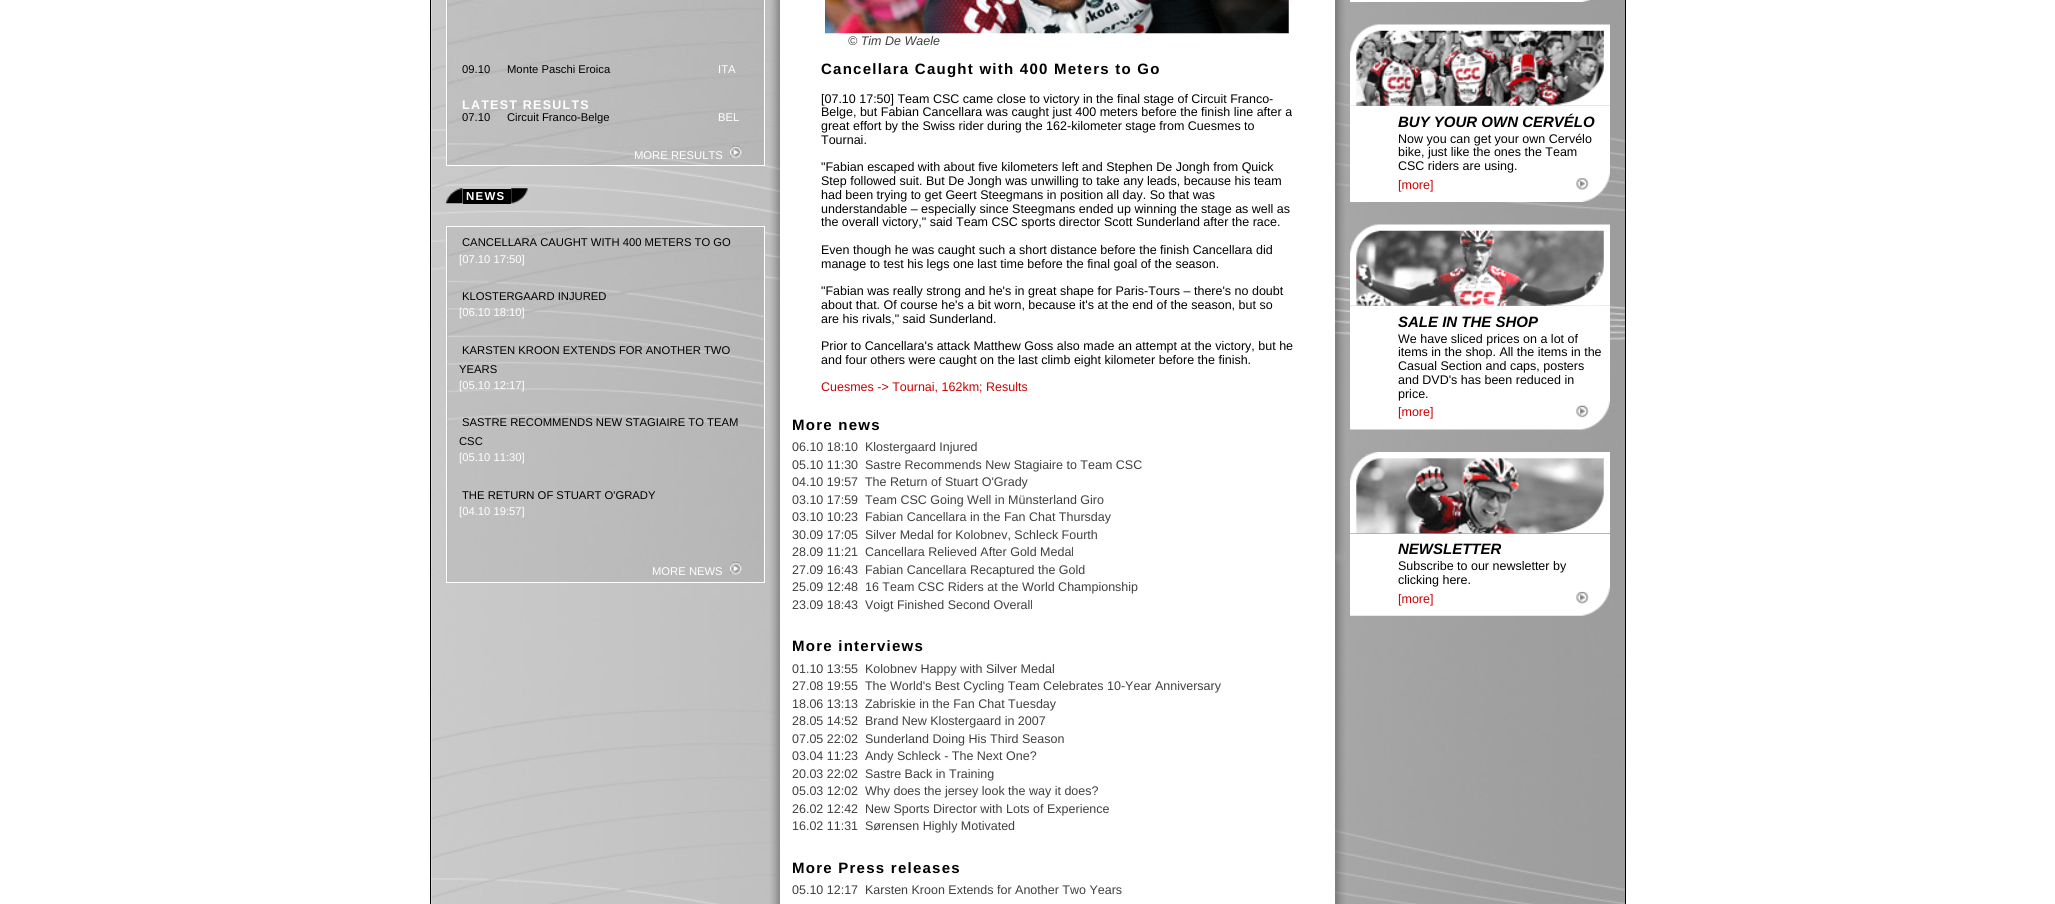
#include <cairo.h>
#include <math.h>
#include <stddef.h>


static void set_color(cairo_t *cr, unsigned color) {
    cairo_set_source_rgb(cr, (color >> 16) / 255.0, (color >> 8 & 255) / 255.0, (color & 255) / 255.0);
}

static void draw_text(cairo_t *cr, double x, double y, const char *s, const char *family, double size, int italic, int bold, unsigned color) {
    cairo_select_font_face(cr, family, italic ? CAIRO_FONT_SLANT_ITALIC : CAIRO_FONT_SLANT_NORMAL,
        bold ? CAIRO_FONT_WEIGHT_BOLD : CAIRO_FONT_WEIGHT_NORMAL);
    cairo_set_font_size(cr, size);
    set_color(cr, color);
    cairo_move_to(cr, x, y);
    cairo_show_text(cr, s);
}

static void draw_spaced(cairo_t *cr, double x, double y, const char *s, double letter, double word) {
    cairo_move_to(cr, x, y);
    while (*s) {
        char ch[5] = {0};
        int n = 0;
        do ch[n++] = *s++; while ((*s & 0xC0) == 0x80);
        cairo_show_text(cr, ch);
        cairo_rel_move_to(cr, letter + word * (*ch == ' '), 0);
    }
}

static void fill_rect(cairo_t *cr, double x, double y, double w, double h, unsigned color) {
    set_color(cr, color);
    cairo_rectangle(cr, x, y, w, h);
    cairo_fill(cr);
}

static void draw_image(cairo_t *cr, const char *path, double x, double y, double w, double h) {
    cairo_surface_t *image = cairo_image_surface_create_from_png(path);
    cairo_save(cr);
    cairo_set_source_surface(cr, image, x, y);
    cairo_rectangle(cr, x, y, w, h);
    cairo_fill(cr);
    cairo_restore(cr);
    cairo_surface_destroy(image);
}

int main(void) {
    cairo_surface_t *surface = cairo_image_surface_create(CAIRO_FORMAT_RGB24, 2055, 904);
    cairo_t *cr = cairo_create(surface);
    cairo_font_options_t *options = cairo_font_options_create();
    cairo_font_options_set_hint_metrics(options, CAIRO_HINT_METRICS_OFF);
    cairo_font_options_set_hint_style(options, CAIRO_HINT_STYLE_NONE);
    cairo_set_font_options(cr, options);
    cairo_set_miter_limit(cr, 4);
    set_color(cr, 0xFFFFFF);
    cairo_paint(cr);
    cairo_rectangle(cr, 430.5, -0.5, 1195, 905);
    set_color(cr, 0x000000);
    cairo_set_line_width(cr, 1);
    cairo_stroke(cr);
    draw_image(cr, "assets/img1.png", 431, 0, 1194, 904);
    draw_image(cr, "assets/img2.png", 447, 0, 317, 165);
    cairo_rectangle(cr, 446.5, -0.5, 318, 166);
    set_color(cr, 0xFFFFFF);
    cairo_stroke(cr);
    draw_text(cr, 462, 73, "09.10", "Liberation Sans", 11.25, 0, 0, 0x000000);
    draw_text(cr, 507, 73, "Monte Paschi Eroica", "Liberation Sans", 11.25, 0, 0, 0x000000);
    draw_text(cr, 718, 73, "ITA", "Liberation Sans", 11.25, 0, 0, 0xFFFFFF);
    cairo_select_font_face(cr, "Liberation Sans", CAIRO_FONT_SLANT_NORMAL, CAIRO_FONT_WEIGHT_BOLD);
    cairo_set_font_size(cr, 12.5);
    draw_spaced(cr, 462, 109, "LATEST RESULTS", 1.25, 0);
    draw_text(cr, 462, 121, "07.10", "Liberation Sans", 11.25, 0, 0, 0x000000);
    draw_text(cr, 507, 121, "Circuit Franco-Belge", "Liberation Sans", 11.25, 0, 0, 0x000000);
    draw_text(cr, 718, 121, "BEL", "Liberation Sans", 11.25, 0, 0, 0xFFFFFF);
    draw_text(cr, 634, 159, "MORE RESULTS", "Liberation Sans", 11.25, 0, 0, 0xFFFFFF);
    draw_image(cr, "assets/img3.png", 730, 145, 12, 14);
    draw_image(cr, "assets/img4.png", 446, 188, 17, 16);
    fill_rect(cr, 463, 189, 48, 15, 0x000000);
    cairo_select_font_face(cr, "Liberation Sans", CAIRO_FONT_SLANT_NORMAL, CAIRO_FONT_WEIGHT_BOLD);
    cairo_set_font_size(cr, 11.5);
    set_color(cr, 0xFFFFFF);
    draw_spaced(cr, 466, 200, "NEWS", 1.25, 0);
    draw_image(cr, "assets/img5.png", 511, 188, 17, 16);
    draw_image(cr, "assets/img6.png", 446, 225, 319, 357);
    cairo_rectangle(cr, 446.5, 226.5, 318, 356);
    cairo_stroke(cr);
    draw_text(cr, 462, 246, "CANCELLARA CAUGHT WITH 400 METERS TO GO", "Liberation Sans", 11.25, 0, 0, 0x000000);
    draw_text(cr, 459, 263, "[07.10 17:50]", "Liberation Sans", 11.25, 0, 0, 0xFFFFFF);
    draw_text(cr, 462, 300, "KLOSTERGAARD INJURED", "Liberation Sans", 11.25, 0, 0, 0x000000);
    draw_text(cr, 459, 316, "[06.10 18:10]", "Liberation Sans", 11.25, 0, 0, 0xFFFFFF);
    draw_text(cr, 462, 354, "KARSTEN KROON EXTENDS FOR ANOTHER TWO", "Liberation Sans", 11.25, 0, 0, 0x000000);
    draw_text(cr, 459, 373, "YEARS", "Liberation Sans", 11.25, 0, 0, 0x000000);
    draw_text(cr, 459, 389, "[05.10 12:17]", "Liberation Sans", 11.25, 0, 0, 0xFFFFFF);
    draw_text(cr, 462, 426, "SASTRE RECOMMENDS NEW STAGIAIRE TO TEAM", "Liberation Sans", 11.25, 0, 0, 0x000000);
    draw_text(cr, 459, 445, "CSC", "Liberation Sans", 11.25, 0, 0, 0x000000);
    draw_text(cr, 459, 461, "[05.10 11:30]", "Liberation Sans", 11.25, 0, 0, 0xFFFFFF);
    draw_text(cr, 462, 499, "THE RETURN OF STUART O'GRADY", "Liberation Sans", 11.25, 0, 0, 0x000000);
    draw_text(cr, 459, 515, "[04.10 19:57]", "Liberation Sans", 11.25, 0, 0, 0xFFFFFF);
    draw_text(cr, 652, 575, "MORE NEWS", "Liberation Sans", 11.25, 0, 0, 0xFFFFFF);
    draw_image(cr, "assets/img7.png", 730, 562, 12, 13);
    draw_image(cr, "assets/img8.png", 769, 0, 11, 904);
    fill_rect(cr, 780, 0, 555, 904, 0xFFFFFF);
    draw_image(cr, "assets/img9.png", 825, 0, 464, 34);
    draw_text(cr, 848, 45, "© Tim De Waele", "Liberation Sans", 12.5, 1, 0, 0x3F3F3F);
    cairo_select_font_face(cr, "Liberation Sans", CAIRO_FONT_SLANT_NORMAL, CAIRO_FONT_WEIGHT_BOLD);
    cairo_set_font_size(cr, 15);
    set_color(cr, 0x000000);
    draw_spaced(cr, 821, 74, "Cancellara Caught with 400 Meters to Go", 1.25, 0);
    draw_text(cr, 821, 103, "[07.10 17:50] Team CSC came close to victory in the final stage of Circuit Franco-", "Liberation Sans", 12.5, 0, 0, 0x000000);
    draw_text(cr, 821, 116, "Belge, but Fabian Cancellara was caught just 400 meters before the finish line after a", "Liberation Sans", 12.5, 0, 0, 0x000000);
    draw_text(cr, 821, 130, "great effort by the Swiss rider during the 162-kilometer stage from Cuesmes to", "Liberation Sans", 12.5, 0, 0, 0x000000);
    draw_text(cr, 821, 144, "Tournai.", "Liberation Sans", 12.5, 0, 0, 0x000000);
    draw_text(cr, 821, 171, "\"Fabian escaped with about five kilometers left and Stephen De Jongh from Quick", "Liberation Sans", 12.5, 0, 0, 0x000000);
    draw_text(cr, 821, 185, "Step followed suit. But De Jongh was unwilling to take any leads, because his team", "Liberation Sans", 12.5, 0, 0, 0x000000);
    draw_text(cr, 821, 199, "had been trying to get Geert Steegmans in position all day. So that was", "Liberation Sans", 12.5, 0, 0, 0x000000);
    draw_text(cr, 821, 213, "understandable – especially since Steegmans ended up winning the stage as well as", "Liberation Sans", 12.5, 0, 0, 0x000000);
    draw_text(cr, 821, 226, "the overall victory,\" said Team CSC sports director Scott Sunderland after the race.", "Liberation Sans", 12.5, 0, 0, 0x000000);
    draw_text(cr, 821, 254, "Even though he was caught such a short distance before the finish Cancellara did", "Liberation Sans", 12.5, 0, 0, 0x000000);
    draw_text(cr, 821, 268, "manage to test his legs one last time before the final goal of the season.", "Liberation Sans", 12.5, 0, 0, 0x000000);
    draw_text(cr, 821, 295, "\"Fabian was really strong and he's in great shape for Paris-Tours – there's no doubt", "Liberation Sans", 12.5, 0, 0, 0x000000);
    draw_text(cr, 821, 309, "about that. Of course he's a bit worn, because it's at the end of the season, but so", "Liberation Sans", 12.5, 0, 0, 0x000000);
    draw_text(cr, 821, 323, "are his rivals,\" said Sunderland.", "Liberation Sans", 12.5, 0, 0, 0x000000);
    draw_text(cr, 821, 350, "Prior to Cancellara's attack Matthew Goss also made an attempt at the victory, but he", "Liberation Sans", 12.5, 0, 0, 0x000000);
    draw_text(cr, 821, 364, "and four others were caught on the last climb eight kilometer before the finish.", "Liberation Sans", 12.5, 0, 0, 0x000000);
    draw_text(cr, 821, 391, "Cuesmes -> Tournai, 162km; Results", "Liberation Sans", 12.5, 0, 0, 0xCC0000);
    cairo_select_font_face(cr, "Liberation Sans", CAIRO_FONT_SLANT_NORMAL, CAIRO_FONT_WEIGHT_BOLD);
    cairo_set_font_size(cr, 15);
    set_color(cr, 0x000000);
    draw_spaced(cr, 792, 430, "More news", 1.25, 0);
    draw_text(cr, 792, 451, "06.10 18:10  Klostergaard Injured", "Liberation Sans", 12.5, 0, 0, 0x3F3F3F);
    draw_text(cr, 792, 469, "05.10 11:30  Sastre Recommends New Stagiaire to Team CSC", "Liberation Sans", 12.5, 0, 0, 0x3F3F3F);
    draw_text(cr, 792, 486, "04.10 19:57  The Return of Stuart O'Grady", "Liberation Sans", 12.5, 0, 0, 0x3F3F3F);
    draw_text(cr, 792, 504, "03.10 17:59  Team CSC Going Well in Münsterland Giro", "Liberation Sans", 12.5, 0, 0, 0x3F3F3F);
    draw_text(cr, 792, 521, "03.10 10:23  Fabian Cancellara in the Fan Chat Thursday", "Liberation Sans", 12.5, 0, 0, 0x3F3F3F);
    draw_text(cr, 792, 539, "30.09 17:05  Silver Medal for Kolobnev, Schleck Fourth", "Liberation Sans", 12.5, 0, 0, 0x3F3F3F);
    draw_text(cr, 792, 556, "28.09 11:21  Cancellara Relieved After Gold Medal", "Liberation Sans", 12.5, 0, 0, 0x3F3F3F);
    draw_text(cr, 792, 574, "27.09 16:43  Fabian Cancellara Recaptured the Gold", "Liberation Sans", 12.5, 0, 0, 0x3F3F3F);
    draw_text(cr, 792, 591, "25.09 12:48  16 Team CSC Riders at the World Championship", "Liberation Sans", 12.5, 0, 0, 0x3F3F3F);
    draw_text(cr, 792, 609, "23.09 18:43  Voigt Finished Second Overall", "Liberation Sans", 12.5, 0, 0, 0x3F3F3F);
    cairo_select_font_face(cr, "Liberation Sans", CAIRO_FONT_SLANT_NORMAL, CAIRO_FONT_WEIGHT_BOLD);
    cairo_set_font_size(cr, 15);
    set_color(cr, 0x000000);
    draw_spaced(cr, 792, 651, "More interviews", 1.25, 0);
    draw_text(cr, 792, 673, "01.10 13:55  Kolobnev Happy with Silver Medal", "Liberation Sans", 12.5, 0, 0, 0x3F3F3F);
    draw_text(cr, 792, 690, "27.08 19:55  The World's Best Cycling Team Celebrates 10-Year Anniversary", "Liberation Sans", 12.5, 0, 0, 0x3F3F3F);
    draw_text(cr, 792, 708, "18.06 13:13  Zabriskie in the Fan Chat Tuesday", "Liberation Sans", 12.5, 0, 0, 0x3F3F3F);
    draw_text(cr, 792, 725, "28.05 14:52  Brand New Klostergaard in 2007", "Liberation Sans", 12.5, 0, 0, 0x3F3F3F);
    draw_text(cr, 792, 743, "07.05 22:02  Sunderland Doing His Third Season", "Liberation Sans", 12.5, 0, 0, 0x3F3F3F);
    draw_text(cr, 792, 760, "03.04 11:23  Andy Schleck - The Next One?", "Liberation Sans", 12.5, 0, 0, 0x3F3F3F);
    draw_text(cr, 792, 778, "20.03 22:02  Sastre Back in Training", "Liberation Sans", 12.5, 0, 0, 0x3F3F3F);
    draw_text(cr, 792, 795, "05.03 12:02  Why does the jersey look the way it does?", "Liberation Sans", 12.5, 0, 0, 0x3F3F3F);
    draw_text(cr, 792, 813, "26.02 12:42  New Sports Director with Lots of Experience", "Liberation Sans", 12.5, 0, 0, 0x3F3F3F);
    draw_text(cr, 792, 830, "16.02 11:31  Sørensen Highly Motivated", "Liberation Sans", 12.5, 0, 0, 0x3F3F3F);
    cairo_select_font_face(cr, "Liberation Sans", CAIRO_FONT_SLANT_NORMAL, CAIRO_FONT_WEIGHT_BOLD);
    cairo_set_font_size(cr, 15);
    set_color(cr, 0x000000);
    draw_spaced(cr, 792, 873, "More Press releases", 1.25, 0);
    draw_text(cr, 792, 894, "05.10 12:17  Karsten Kroon Extends for Another Two Years", "Liberation Sans", 12.5, 0, 0, 0x3F3F3F);
    draw_image(cr, "assets/img10.png", 1335, 0, 15, 904);
    draw_image(cr, "assets/img11.png", 1350, 0, 240, 2);
    draw_image(cr, "assets/img12.png", 1350, 24, 260, 82);
    fill_rect(cr, 1350, 106, 260, 67, 0xFFFFFF);
    draw_text(cr, 1398, 127, "BUY YOUR OWN CERVÉLO", "Liberation Sans", 15, 1, 1, 0x000000);
    draw_text(cr, 1398, 143, "Now you can get your own Cervélo", "Liberation Sans", 12.5, 0, 0, 0x000000);
    draw_text(cr, 1398, 156, "bike, just like the ones the Team", "Liberation Sans", 12.5, 0, 0, 0x000000);
    draw_text(cr, 1398, 170, "CSC riders are using.", "Liberation Sans", 12.5, 0, 0, 0x000000);
    draw_image(cr, "assets/img13.png", 1350, 173, 260, 29);
    draw_text(cr, 1398, 189, "[more]", "Liberation Sans", 12.5, 0, 0, 0xCC0000);
    draw_image(cr, "assets/img14.png", 1350, 224, 260, 82);
    fill_rect(cr, 1350, 306, 260, 94, 0xFFFFFF);
    draw_text(cr, 1398, 327, "SALE IN THE SHOP", "Liberation Sans", 15, 1, 1, 0x000000);
    draw_text(cr, 1398, 343, "We have sliced prices on a lot of", "Liberation Sans", 12.5, 0, 0, 0x000000);
    draw_text(cr, 1398, 356, "items in the shop. All the items in the", "Liberation Sans", 12.5, 0, 0, 0x000000);
    draw_text(cr, 1398, 370, "Casual Section and caps, posters", "Liberation Sans", 12.5, 0, 0, 0x000000);
    draw_text(cr, 1398, 384, "and DVD's has been reduced in", "Liberation Sans", 12.5, 0, 0, 0x000000);
    draw_image(cr, "assets/img15.png", 1350, 400, 260, 30);
    draw_text(cr, 1398, 398, "price.", "Liberation Sans", 12.5, 0, 0, 0x000000);
    draw_text(cr, 1398, 416, "[more]", "Liberation Sans", 12.5, 0, 0, 0xCC0000);
    draw_image(cr, "assets/img16.png", 1350, 452, 260, 82);
    fill_rect(cr, 1350, 534, 260, 52, 0xFFFFFF);
    draw_text(cr, 1398, 554, "NEWSLETTER", "Liberation Sans", 15, 1, 1, 0x000000);
    draw_text(cr, 1398, 570, "Subscribe to our newsletter by", "Liberation Sans", 12.5, 0, 0, 0x000000);
    draw_image(cr, "assets/img17.png", 1350, 586, 260, 30);
    draw_text(cr, 1398, 584, "clicking here.", "Liberation Sans", 12.5, 0, 0, 0x000000);
    draw_text(cr, 1398, 603, "[more]", "Liberation Sans", 12.5, 0, 0, 0xCC0000);
    cairo_surface_write_to_png(surface, "output.png");
    cairo_font_options_destroy(options);
    cairo_destroy(cr);
    cairo_surface_destroy(surface);
    return 0;
}
